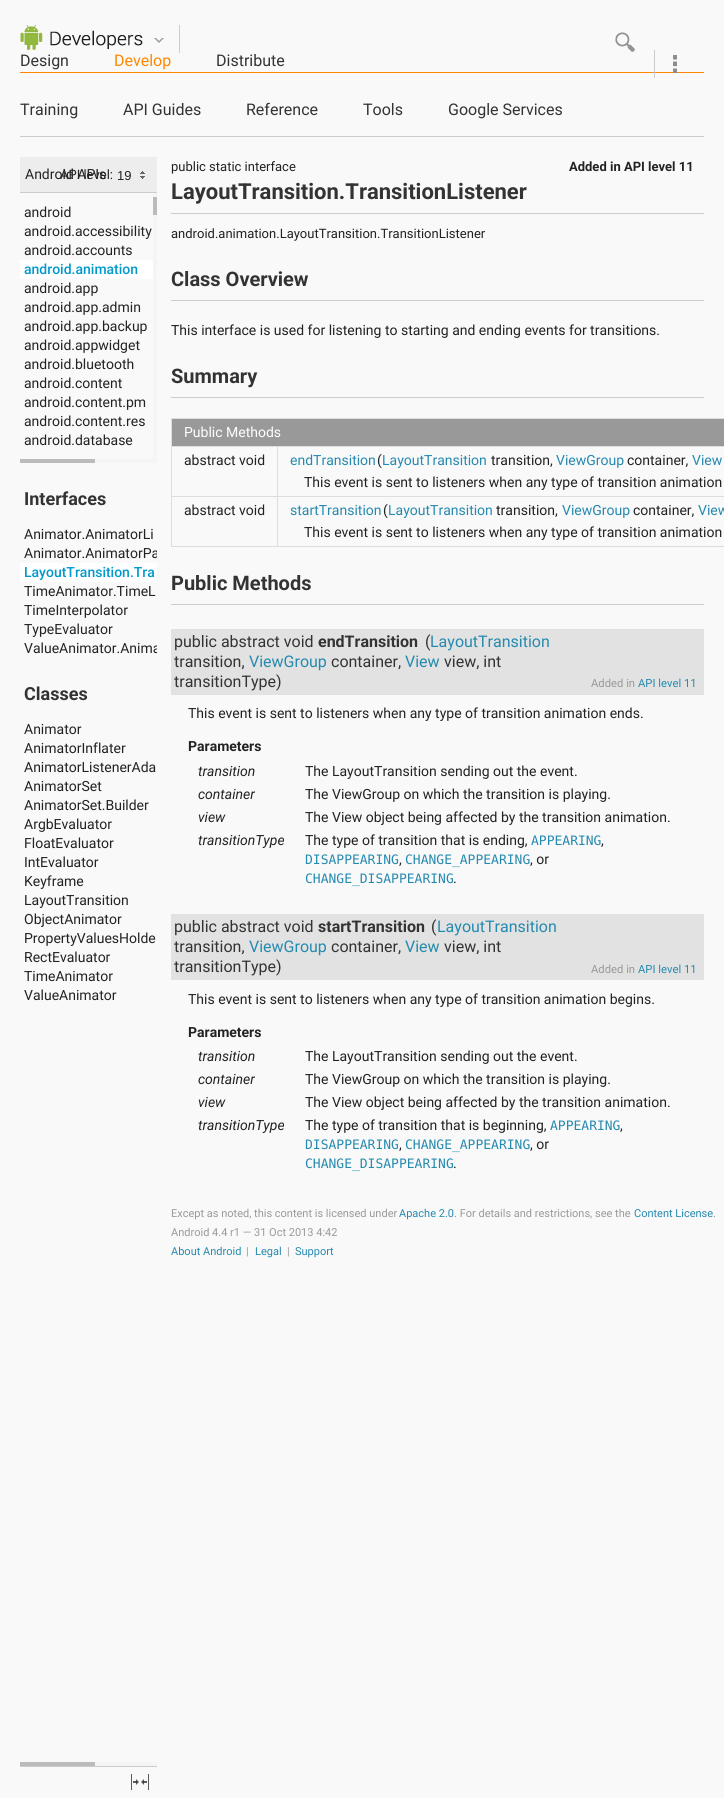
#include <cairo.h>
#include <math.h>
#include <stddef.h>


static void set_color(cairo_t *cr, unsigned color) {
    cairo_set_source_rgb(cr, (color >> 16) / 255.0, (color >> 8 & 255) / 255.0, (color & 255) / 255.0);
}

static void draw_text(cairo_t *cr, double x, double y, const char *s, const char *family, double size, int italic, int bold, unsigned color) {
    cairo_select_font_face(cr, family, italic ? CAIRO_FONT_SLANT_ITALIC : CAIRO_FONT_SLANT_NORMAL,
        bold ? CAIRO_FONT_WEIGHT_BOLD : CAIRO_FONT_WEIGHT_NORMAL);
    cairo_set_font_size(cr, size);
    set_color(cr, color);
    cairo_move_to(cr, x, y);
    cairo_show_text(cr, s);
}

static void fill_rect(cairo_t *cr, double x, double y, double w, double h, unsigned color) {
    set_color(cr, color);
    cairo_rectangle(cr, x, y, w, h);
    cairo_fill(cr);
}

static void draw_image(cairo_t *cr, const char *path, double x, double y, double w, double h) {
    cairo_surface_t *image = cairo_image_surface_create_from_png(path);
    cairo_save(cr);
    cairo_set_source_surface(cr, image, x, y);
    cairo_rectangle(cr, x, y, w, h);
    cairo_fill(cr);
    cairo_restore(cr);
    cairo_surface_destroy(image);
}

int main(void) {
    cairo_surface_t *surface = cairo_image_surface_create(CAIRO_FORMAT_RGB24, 724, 1798);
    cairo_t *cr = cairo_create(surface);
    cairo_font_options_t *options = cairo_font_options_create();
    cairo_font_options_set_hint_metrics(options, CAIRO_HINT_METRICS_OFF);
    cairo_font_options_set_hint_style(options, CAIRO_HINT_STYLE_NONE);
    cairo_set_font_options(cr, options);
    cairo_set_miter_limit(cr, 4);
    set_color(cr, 0xF9F9F9);
    cairo_paint(cr);
    fill_rect(cr, 20, 72, 684, 1, 0xFF8800);
    draw_image(cr, "assets/img1.png", 20, 25, 123, 25);
    fill_rect(cr, 179, 25, 1, 28, 0xCCCCCC);
    draw_image(cr, "assets/img2.png", 154, 38, 10, 5);
    draw_image(cr, "assets/img3.png", 615, 32, 20, 20);
    draw_image(cr, "assets/img4.png", 673, 55, 4, 18);
    fill_rect(cr, 654, 50, 1, 28, 0xCCCCCC);
    draw_text(cr, 20, 66, "Design", "Roboto", 16, 0, 0, 0x333333);
    draw_text(cr, 114, 66, "Develop", "Roboto", 16, 0, 0, 0xFF8800);
    draw_text(cr, 216, 66, "Distribute", "Roboto", 16, 0, 0, 0x333333);
    fill_rect(cr, 20, 136, 684, 1, 0xCCCCCC);
    draw_text(cr, 20, 115, "Training", "Roboto", 16, 0, 0, 0x333333);
    draw_text(cr, 123, 115, "API Guides", "Roboto", 16, 0, 0, 0x333333);
    draw_text(cr, 246, 115, "Reference", "Roboto", 16, 0, 0, 0x333333);
    draw_text(cr, 363, 115, "Tools", "Roboto", 16, 0, 0, 0x333333);
    draw_text(cr, 448, 115, "Google Services", "Roboto", 16, 0, 0, 0x333333);
    fill_rect(cr, 20, 157, 137, 35, 0xEDEDED);
    fill_rect(cr, 20, 192, 137, 1, 0xCCCCCC);
    draw_text(cr, 60, 179, "API level:", "Roboto", 13, 0, 0, 0x222222);
    draw_text(cr, 25, 179, "Android APIs", "Roboto", 14, 0, 0, 0x222222);
    draw_image(cr, "assets/img5.png", 140, 171, 5, 8);
    draw_text(cr, 117, 180, "19", "Liberation Sans", 13, 0, 0, 0x222222);
    draw_text(cr, 24, 217, "android", "Roboto", 14, 0, 0, 0x222222);
    draw_text(cr, 24, 236, "android.accessibility", "Roboto", 14, 0, 0, 0x222222);
    draw_text(cr, 24, 255, "android.accounts", "Roboto", 14, 0, 0, 0x222222);
    fill_rect(cr, 20, 260, 133, 19, 0xFFFFFF);
    draw_text(cr, 24, 274, "android.animation", "Roboto Medium", 14, 0, 0, 0x0099CC);
    draw_text(cr, 24, 293, "android.app", "Roboto", 14, 0, 0, 0x222222);
    draw_text(cr, 24, 312, "android.app.admin", "Roboto", 14, 0, 0, 0x222222);
    draw_text(cr, 24, 331, "android.app.backup", "Roboto", 14, 0, 0, 0x222222);
    draw_text(cr, 24, 350, "android.appwidget", "Roboto", 14, 0, 0, 0x222222);
    draw_text(cr, 24, 369, "android.bluetooth", "Roboto", 14, 0, 0, 0x222222);
    draw_text(cr, 24, 388, "android.content", "Roboto", 14, 0, 0, 0x222222);
    draw_text(cr, 24, 407, "android.content.pm", "Roboto", 14, 0, 0, 0x222222);
    draw_text(cr, 24, 426, "android.content.res", "Roboto", 14, 0, 0, 0x222222);
    draw_text(cr, 24, 445, "android.database", "Roboto", 14, 0, 0, 0x222222);
    fill_rect(cr, 153, 193, 4, 270, 0xF5F5F5);
    fill_rect(cr, 153, 197, 4, 18, 0xBBBBBB);
    fill_rect(cr, 95, 459, 62, 4, 0xF5F5F5);
    fill_rect(cr, 20, 459, 75, 4, 0xBBBBBB);
    draw_text(cr, 24, 505, "Interfaces", "Roboto", 18, 0, 1, 0x333333);
    draw_text(cr, 24, 539, "Animator.AnimatorLi", "Roboto", 14, 0, 0, 0x222222);
    cairo_save(cr);
    cairo_rectangle(cr, 20, 473, 137, 1293);
    cairo_clip(cr);
    draw_text(cr, 24, 558, "Animator.AnimatorPa", "Roboto", 14, 0, 0, 0x222222);
    cairo_restore(cr);
    fill_rect(cr, 20, 563, 137, 19, 0xFFFFFF);
    draw_text(cr, 24, 577, "LayoutTransition.Tra", "Roboto Medium", 14, 0, 0, 0x0099CC);
    draw_text(cr, 24, 596, "TimeAnimator.TimeL", "Roboto", 14, 0, 0, 0x222222);
    draw_text(cr, 24, 615, "TimeInterpolator", "Roboto", 14, 0, 0, 0x222222);
    draw_text(cr, 24, 634, "TypeEvaluator", "Roboto", 14, 0, 0, 0x222222);
    cairo_save(cr);
    cairo_rectangle(cr, 20, 473, 137, 1293);
    cairo_clip(cr);
    draw_text(cr, 24, 653, "ValueAnimator.Anima", "Roboto", 14, 0, 0, 0x222222);
    cairo_restore(cr);
    draw_text(cr, 24, 700, "Classes", "Roboto", 18, 0, 1, 0x333333);
    draw_text(cr, 24, 734, "Animator", "Roboto", 14, 0, 0, 0x222222);
    draw_text(cr, 24, 753, "AnimatorInflater", "Roboto", 14, 0, 0, 0x222222);
    draw_text(cr, 24, 772, "AnimatorListenerAda", "Roboto", 14, 0, 0, 0x222222);
    draw_text(cr, 24, 791, "AnimatorSet", "Roboto", 14, 0, 0, 0x222222);
    draw_text(cr, 24, 810, "AnimatorSet.Builder", "Roboto", 14, 0, 0, 0x222222);
    draw_text(cr, 24, 829, "ArgbEvaluator", "Roboto", 14, 0, 0, 0x222222);
    draw_text(cr, 24, 848, "FloatEvaluator", "Roboto", 14, 0, 0, 0x222222);
    draw_text(cr, 24, 867, "IntEvaluator", "Roboto", 14, 0, 0, 0x222222);
    draw_text(cr, 24, 886, "Keyframe", "Roboto", 14, 0, 0, 0x222222);
    draw_text(cr, 24, 905, "LayoutTransition", "Roboto", 14, 0, 0, 0x222222);
    draw_text(cr, 24, 924, "ObjectAnimator", "Roboto", 14, 0, 0, 0x222222);
    draw_text(cr, 24, 943, "PropertyValuesHolde", "Roboto", 14, 0, 0, 0x222222);
    draw_text(cr, 24, 962, "RectEvaluator", "Roboto", 14, 0, 0, 0x222222);
    draw_text(cr, 24, 981, "TimeAnimator", "Roboto", 14, 0, 0, 0x222222);
    draw_text(cr, 24, 1000, "ValueAnimator", "Roboto", 14, 0, 0, 0x222222);
    fill_rect(cr, 95, 1762, 62, 4, 0xF5F5F5);
    fill_rect(cr, 20, 1762, 75, 4, 0xBBBBBB);
    fill_rect(cr, 20, 1766, 137, 1, 0xCCCCCC);
    draw_image(cr, "assets/img6.png", 131, 1774, 18, 16);
    fill_rect(cr, 171, 213, 533, 1, 0xCCCCCC);
    draw_text(cr, 171, 171, "public static interface", "Roboto", 13, 0, 0, 0x222222);
    draw_text(cr, 171, 199, "LayoutTransition.TransitionListener", "Roboto", 22, 0, 1, 0x333333);
    draw_text(cr, 569, 171, "Added in API level 11", "Roboto", 13, 0, 1, 0x222222);
    draw_text(cr, 171, 238, "android.animation.LayoutTransition.TransitionListener", "Roboto", 13, 0, 0, 0x222222);
    draw_text(cr, 171, 286, "Class Overview", "Roboto", 20, 0, 1, 0x333333);
    fill_rect(cr, 171, 300, 533, 1, 0xCCCCCC);
    draw_text(cr, 171, 335, "This interface is used for listening to starting and ending events for transitions.", "Roboto", 14, 0, 0, 0x222222);
    draw_text(cr, 171, 383, "Summary", "Roboto", 20, 0, 1, 0x333333);
    fill_rect(cr, 171, 397, 533, 1, 0xCCCCCC);
    fill_rect(cr, 172, 419, 552, 27, 0x999999);
    fill_rect(cr, 171, 418, 553, 1, 0xDDDDDD);
    fill_rect(cr, 277, 446, 447, 1, 0xDDDDDD);
    fill_rect(cr, 277, 496, 447, 1, 0xDDDDDD);
    fill_rect(cr, 277, 546, 447, 1, 0xDDDDDD);
    fill_rect(cr, 277, 496, 1, 51, 0xDDDDDD);
    fill_rect(cr, 171, 496, 107, 1, 0xDDDDDD);
    fill_rect(cr, 277, 446, 1, 51, 0xDDDDDD);
    fill_rect(cr, 171, 446, 107, 1, 0xDDDDDD);
    fill_rect(cr, 171, 546, 107, 1, 0xDDDDDD);
    fill_rect(cr, 171, 496, 1, 51, 0xDDDDDD);
    fill_rect(cr, 171, 446, 1, 51, 0xDDDDDD);
    fill_rect(cr, 171, 418, 1, 29, 0xDDDDDD);
    draw_text(cr, 184, 437, "Public Methods", "Roboto", 14, 0, 0, 0xFFFFFF);
    draw_text(cr, 184, 465, "abstract void", "Roboto", 14, 0, 0, 0x222222);
    draw_text(cr, 290, 465, "endTransition", "Roboto", 14, 0, 0, 0x258AAF);
    draw_text(cr, 377, 465, "(", "Roboto", 14, 0, 0, 0x222222);
    draw_text(cr, 382, 465, "LayoutTransition", "Roboto", 14, 0, 0, 0x258AAF);
    draw_text(cr, 491, 465, "transition,", "Roboto", 14, 0, 0, 0x222222);
    draw_text(cr, 556, 465, "ViewGroup", "Roboto", 14, 0, 0, 0x258AAF);
    draw_text(cr, 627, 465, "container,", "Roboto", 14, 0, 0, 0x222222);
    draw_text(cr, 692, 465, "View", "Roboto", 14, 0, 0, 0x258AAF);
    draw_text(cr, 304, 487, "This event is sent to listeners when any type of transition animation", "Roboto", 14, 0, 0, 0x222222);
    draw_text(cr, 184, 515, "abstract void", "Roboto", 14, 0, 0, 0x222222);
    draw_text(cr, 290, 515, "startTransition", "Roboto", 14, 0, 0, 0x258AAF);
    draw_text(cr, 383, 515, "(", "Roboto", 14, 0, 0, 0x222222);
    draw_text(cr, 388, 515, "LayoutTransition", "Roboto", 14, 0, 0, 0x258AAF);
    draw_text(cr, 496, 515, "transition,", "Roboto", 14, 0, 0, 0x222222);
    draw_text(cr, 562, 515, "ViewGroup", "Roboto", 14, 0, 0, 0x258AAF);
    draw_text(cr, 633, 515, "container,", "Roboto", 14, 0, 0, 0x222222);
    draw_text(cr, 698, 515, "View", "Roboto", 14, 0, 0, 0x258AAF);
    draw_text(cr, 304, 537, "This event is sent to listeners when any type of transition animation", "Roboto", 14, 0, 0, 0x222222);
    draw_text(cr, 171, 590, "Public Methods", "Roboto", 20, 0, 1, 0x333333);
    fill_rect(cr, 171, 604, 533, 1, 0xCCCCCC);
    fill_rect(cr, 171, 629, 533, 66, 0xE2E2E2);
    draw_text(cr, 174, 647, "public abstract void", "Roboto", 16, 0, 0, 0x333333);
    draw_text(cr, 318, 647, "endTransition", "Roboto", 16, 0, 1, 0x333333);
    draw_text(cr, 425, 647, "(", "Roboto", 16, 0, 0, 0x333333);
    draw_text(cr, 430, 647, "LayoutTransition", "Roboto", 16, 0, 0, 0x258AAF);
    draw_text(cr, 174, 667, "transition,", "Roboto", 16, 0, 0, 0x333333);
    draw_text(cr, 249, 667, "ViewGroup", "Roboto", 16, 0, 0, 0x258AAF);
    draw_text(cr, 331, 667, "container,", "Roboto", 16, 0, 0, 0x333333);
    draw_text(cr, 405, 667, "View", "Roboto", 16, 0, 0, 0x258AAF);
    draw_text(cr, 444, 667, "view, int", "Roboto", 16, 0, 0, 0x333333);
    draw_text(cr, 174, 687, "transitionType)", "Roboto", 16, 0, 0, 0x333333);
    draw_text(cr, 591, 687, "Added in", "Roboto", 11.25, 0, 0, 0x999999);
    draw_text(cr, 638, 687, "API level 11", "Roboto", 11.25, 0, 0, 0x258AAF);
    draw_text(cr, 188, 718, "This event is sent to listeners when any type of transition animation ends.", "Roboto", 14, 0, 0, 0x222222);
    draw_text(cr, 188, 751, "Parameters", "Roboto", 14, 0, 1, 0x222222);
    draw_text(cr, 198, 776, "transition", "Roboto", 14, 1, 0, 0x222222);
    draw_text(cr, 305, 776, "The LayoutTransition sending out the event.", "Roboto", 14, 0, 0, 0x222222);
    draw_text(cr, 198, 799, "container", "Roboto", 14, 1, 0, 0x222222);
    draw_text(cr, 305, 799, "The ViewGroup on which the transition is playing.", "Roboto", 14, 0, 0, 0x222222);
    draw_text(cr, 198, 822, "view", "Roboto", 14, 1, 0, 0x222222);
    draw_text(cr, 305, 822, "The View object being affected by the transition animation.", "Roboto", 14, 0, 0, 0x222222);
    draw_text(cr, 198, 845, "transitionType", "Roboto", 14, 1, 0, 0x222222);
    draw_text(cr, 305, 845, "The type of transition that is ending,", "Roboto", 14, 0, 0, 0x222222);
    draw_text(cr, 531, 845, "APPEARING", "DejaVu Sans Mono", 13, 0, 0, 0x258AAF);
    draw_text(cr, 601, 845, ",", "Roboto", 14, 0, 0, 0x222222);
    draw_text(cr, 305, 864, "DISAPPEARING", "DejaVu Sans Mono", 13, 0, 0, 0x258AAF);
    draw_text(cr, 399, 864, ",", "Roboto", 14, 0, 0, 0x222222);
    draw_text(cr, 405, 864, "CHANGE_APPEARING", "DejaVu Sans Mono", 13, 0, 0, 0x258AAF);
    draw_text(cr, 530, 864, ", or", "Roboto", 14, 0, 0, 0x222222);
    draw_text(cr, 305, 883, "CHANGE_DISAPPEARING", "DejaVu Sans Mono", 13, 0, 0, 0x258AAF);
    draw_text(cr, 453, 883, ".", "Roboto", 14, 0, 0, 0x222222);
    fill_rect(cr, 171, 914, 533, 66, 0xE2E2E2);
    draw_text(cr, 174, 932, "public abstract void", "Roboto", 16, 0, 0, 0x333333);
    draw_text(cr, 318, 932, "startTransition", "Roboto", 16, 0, 1, 0x333333);
    draw_text(cr, 431, 932, "(", "Roboto", 16, 0, 0, 0x333333);
    draw_text(cr, 437, 932, "LayoutTransition", "Roboto", 16, 0, 0, 0x258AAF);
    draw_text(cr, 174, 952, "transition,", "Roboto", 16, 0, 0, 0x333333);
    draw_text(cr, 249, 952, "ViewGroup", "Roboto", 16, 0, 0, 0x258AAF);
    draw_text(cr, 331, 952, "container,", "Roboto", 16, 0, 0, 0x333333);
    draw_text(cr, 405, 952, "View", "Roboto", 16, 0, 0, 0x258AAF);
    draw_text(cr, 444, 952, "view, int", "Roboto", 16, 0, 0, 0x333333);
    draw_text(cr, 174, 972, "transitionType)", "Roboto", 16, 0, 0, 0x333333);
    draw_text(cr, 591, 973, "Added in", "Roboto", 11.25, 0, 0, 0x999999);
    draw_text(cr, 638, 973, "API level 11", "Roboto", 11.25, 0, 0, 0x258AAF);
    draw_text(cr, 188, 1004, "This event is sent to listeners when any type of transition animation begins.", "Roboto", 14, 0, 0, 0x222222);
    draw_text(cr, 188, 1037, "Parameters", "Roboto", 14, 0, 1, 0x222222);
    draw_text(cr, 198, 1061, "transition", "Roboto", 14, 1, 0, 0x222222);
    draw_text(cr, 305, 1061, "The LayoutTransition sending out the event.", "Roboto", 14, 0, 0, 0x222222);
    draw_text(cr, 198, 1084, "container", "Roboto", 14, 1, 0, 0x222222);
    draw_text(cr, 305, 1084, "The ViewGroup on which the transition is playing.", "Roboto", 14, 0, 0, 0x222222);
    draw_text(cr, 198, 1107, "view", "Roboto", 14, 1, 0, 0x222222);
    draw_text(cr, 305, 1107, "The View object being affected by the transition animation.", "Roboto", 14, 0, 0, 0x222222);
    draw_text(cr, 198, 1130, "transitionType", "Roboto", 14, 1, 0, 0x222222);
    draw_text(cr, 305, 1130, "The type of transition that is beginning,", "Roboto", 14, 0, 0, 0x222222);
    draw_text(cr, 550, 1130, "APPEARING", "DejaVu Sans Mono", 13, 0, 0, 0x258AAF);
    draw_text(cr, 620, 1130, ",", "Roboto", 14, 0, 0, 0x222222);
    draw_text(cr, 305, 1149, "DISAPPEARING", "DejaVu Sans Mono", 13, 0, 0, 0x258AAF);
    draw_text(cr, 399, 1149, ",", "Roboto", 14, 0, 0, 0x222222);
    draw_text(cr, 405, 1149, "CHANGE_APPEARING", "DejaVu Sans Mono", 13, 0, 0, 0x258AAF);
    draw_text(cr, 530, 1149, ", or", "Roboto", 14, 0, 0, 0x222222);
    draw_text(cr, 305, 1168, "CHANGE_DISAPPEARING", "DejaVu Sans Mono", 13, 0, 0, 0x258AAF);
    draw_text(cr, 453, 1168, ".", "Roboto", 14, 0, 0, 0x222222);
    draw_text(cr, 171, 1217, "Except as noted, this content is licensed under", "Roboto", 11, 0, 0, 0x999999);
    draw_text(cr, 399, 1217, "Apache 2.0", "Roboto", 11, 0, 0, 0x258AAF);
    draw_text(cr, 454, 1217, ". For details and restrictions, see the", "Roboto", 11, 0, 0, 0x999999);
    draw_text(cr, 634, 1217, "Content License", "Roboto", 11, 0, 0, 0x258AAF);
    draw_text(cr, 713, 1217, ".", "Roboto", 11, 0, 0, 0x999999);
    draw_text(cr, 171, 1236, "Android 4.4 r1 — 31 Oct 2013 4:42", "Roboto", 11, 0, 0, 0x999999);
    draw_text(cr, 171, 1255, "About Android", "Roboto", 11, 0, 0, 0x258AAF);
    draw_text(cr, 246, 1255, "|", "Roboto", 11, 0, 0, 0x999999);
    draw_text(cr, 255, 1255, "Legal", "Roboto", 11, 0, 0, 0x258AAF);
    draw_text(cr, 287, 1255, "|", "Roboto", 11, 0, 0, 0x999999);
    draw_text(cr, 295, 1255, "Support", "Roboto", 11, 0, 0, 0x258AAF);
    cairo_surface_write_to_png(surface, "output.png");
    cairo_font_options_destroy(options);
    cairo_destroy(cr);
    cairo_surface_destroy(surface);
    return 0;
}
